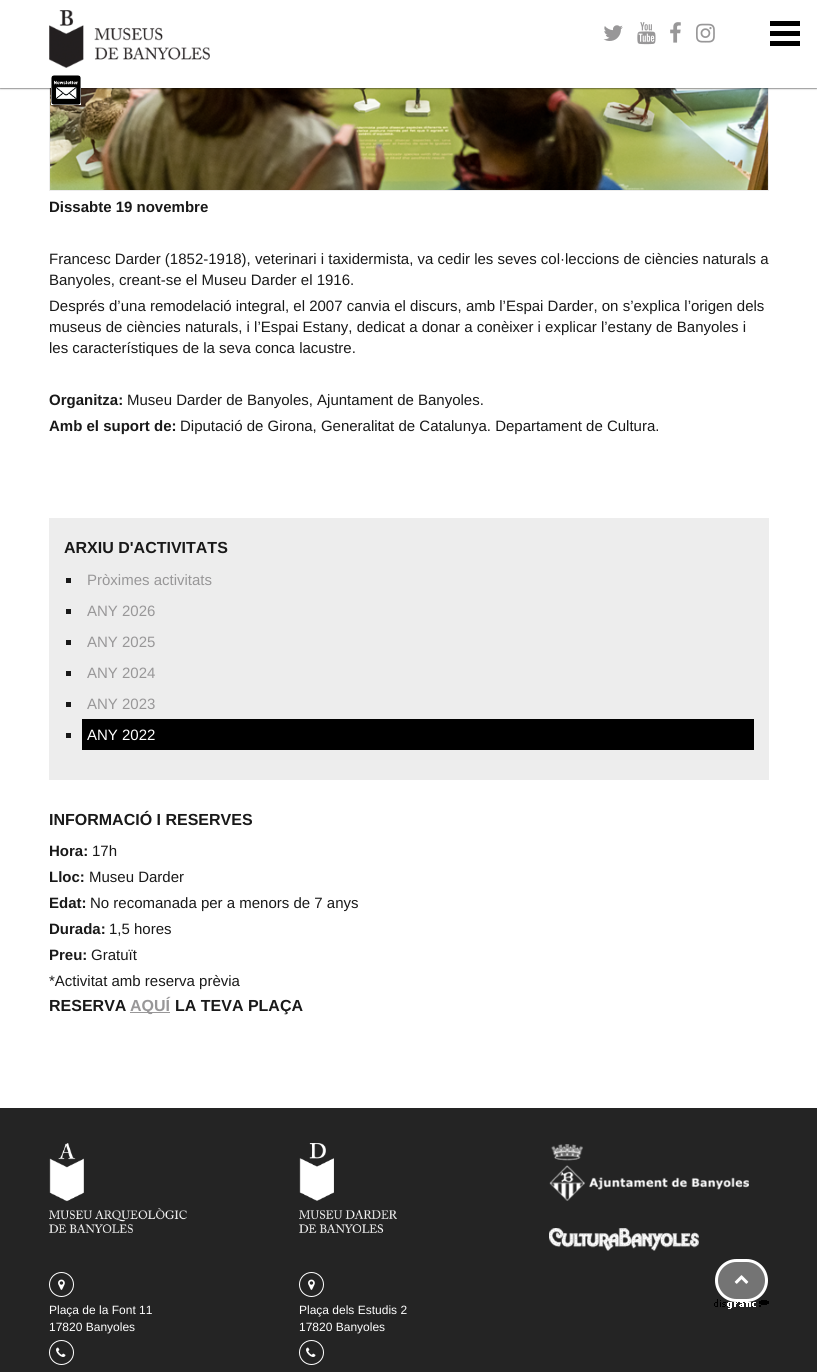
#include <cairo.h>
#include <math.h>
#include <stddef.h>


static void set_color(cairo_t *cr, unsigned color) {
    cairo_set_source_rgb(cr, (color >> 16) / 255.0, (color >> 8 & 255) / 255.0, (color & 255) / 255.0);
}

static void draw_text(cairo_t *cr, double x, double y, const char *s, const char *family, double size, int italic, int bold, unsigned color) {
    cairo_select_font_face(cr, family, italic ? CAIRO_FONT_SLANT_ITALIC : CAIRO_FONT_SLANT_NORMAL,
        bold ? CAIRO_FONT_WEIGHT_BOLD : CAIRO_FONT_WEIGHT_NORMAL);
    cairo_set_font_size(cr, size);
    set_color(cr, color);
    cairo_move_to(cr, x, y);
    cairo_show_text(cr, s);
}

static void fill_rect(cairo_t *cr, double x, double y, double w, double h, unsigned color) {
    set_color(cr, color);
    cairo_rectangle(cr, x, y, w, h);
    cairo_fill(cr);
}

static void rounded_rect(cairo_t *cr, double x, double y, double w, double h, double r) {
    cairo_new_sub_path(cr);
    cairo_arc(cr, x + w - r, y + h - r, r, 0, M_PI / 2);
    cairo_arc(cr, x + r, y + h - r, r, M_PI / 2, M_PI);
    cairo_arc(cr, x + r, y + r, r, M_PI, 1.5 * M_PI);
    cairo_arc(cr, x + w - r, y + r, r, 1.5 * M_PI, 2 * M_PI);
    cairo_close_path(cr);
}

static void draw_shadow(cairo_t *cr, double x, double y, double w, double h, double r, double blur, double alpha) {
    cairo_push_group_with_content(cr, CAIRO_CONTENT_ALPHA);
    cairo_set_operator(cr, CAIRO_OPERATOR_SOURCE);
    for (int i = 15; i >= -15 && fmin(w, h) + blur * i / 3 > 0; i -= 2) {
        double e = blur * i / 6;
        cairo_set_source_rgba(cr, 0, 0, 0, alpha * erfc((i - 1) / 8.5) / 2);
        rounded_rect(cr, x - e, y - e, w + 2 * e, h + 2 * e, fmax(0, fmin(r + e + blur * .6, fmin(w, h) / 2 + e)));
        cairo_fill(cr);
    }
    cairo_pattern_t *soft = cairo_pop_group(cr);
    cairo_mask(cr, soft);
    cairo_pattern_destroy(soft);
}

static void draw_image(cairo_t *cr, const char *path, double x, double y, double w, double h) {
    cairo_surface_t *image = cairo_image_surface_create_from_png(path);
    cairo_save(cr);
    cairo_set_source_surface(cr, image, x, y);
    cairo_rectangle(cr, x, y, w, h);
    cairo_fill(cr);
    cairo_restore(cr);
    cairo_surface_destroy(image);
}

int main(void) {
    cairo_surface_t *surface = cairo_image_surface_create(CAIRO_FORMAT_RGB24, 817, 1372);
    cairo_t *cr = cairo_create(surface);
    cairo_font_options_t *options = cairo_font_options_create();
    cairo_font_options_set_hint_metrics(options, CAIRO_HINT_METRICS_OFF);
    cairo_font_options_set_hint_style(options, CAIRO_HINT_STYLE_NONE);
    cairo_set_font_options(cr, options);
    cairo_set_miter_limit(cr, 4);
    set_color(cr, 0xFFFFFF);
    cairo_paint(cr);
    cairo_rectangle(cr, 49.5, -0.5, 719, 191);
    set_color(cr, 0xEDEDED);
    cairo_set_line_width(cr, 1);
    cairo_stroke(cr);
    draw_image(cr, "assets/img7.png", 50, 88, 718, 102);
    set_color(cr, 0x000000);
    draw_shadow(cr, 0, 0, 817, 88, 0, 1, 1);
    fill_rect(cr, 0, 0, 817, 88, 0xFFFFFF);
    fill_rect(cr, 770, 21, 30, 5, 0x000000);
    fill_rect(cr, 770, 31, 30, 5, 0x000000);
    fill_rect(cr, 770, 41, 30, 5, 0x000000);
    draw_image(cr, "assets/img1.png", 49, 10, 161, 58);
    draw_image(cr, "assets/img2.png", 603, 25, 20, 16);
    draw_image(cr, "assets/img3.png", 637, 22, 19, 23);
    draw_image(cr, "assets/img4.png", 670, 22, 11, 21);
    draw_image(cr, "assets/img5.png", 696, 23, 19, 20);
    draw_image(cr, "assets/img6.png", 51, 75, 30, 30);
    draw_text(cr, 49, 212, "Dissabte 19 novembre", "Liberation Sans", 15, 0, 1, 0x191919);
    draw_text(cr, 49, 264, "Francesc Darder (1852-1918), veterinari i taxidermista, va cedir les seves col·leccions de ciències naturals a", "Liberation Sans", 15, 0, 0, 0x191919);
    draw_text(cr, 49, 285, "Banyoles, creant-se el Museu Darder el 1916.", "Liberation Sans", 15, 0, 0, 0x191919);
    draw_text(cr, 49, 311, "Després d’una remodelació integral, el 2007 canvia el discurs, amb l’Espai Darder, on s’explica l’origen dels", "Liberation Sans", 15, 0, 0, 0x191919);
    draw_text(cr, 49, 332, "museus de ciències naturals, i l’Espai Estany, dedicat a donar a conèixer i explicar l’estany de Banyoles i", "Liberation Sans", 15, 0, 0, 0x191919);
    draw_text(cr, 49, 353, "les característiques de la seva conca lacustre.", "Liberation Sans", 15, 0, 0, 0x191919);
    draw_text(cr, 49, 405, "Organitza:", "Liberation Sans", 15, 0, 1, 0x191919);
    draw_text(cr, 127, 405, "Museu Darder de Banyoles, Ajuntament de Banyoles.", "Liberation Sans", 15, 0, 0, 0x191919);
    draw_text(cr, 49, 431, "Amb el suport de:", "Liberation Sans", 15, 0, 1, 0x191919);
    draw_text(cr, 180, 431, "Diputació de Girona, Generalitat de Catalunya. Departament de Cultura.", "Liberation Sans", 15, 0, 0, 0x191919);
    fill_rect(cr, 49, 518, 720, 262, 0xEDEDED);
    draw_text(cr, 64, 553, "ARXIU D'ACTIVITATS", "Liberation Sans", 16, 0, 1, 0x191919);
    fill_rect(cr, 66, 578, 5, 5, 0x191919);
    draw_text(cr, 87, 585, "Pròximes activitats", "Liberation Sans", 15, 0, 0, 0x989798);
    fill_rect(cr, 66, 609, 5, 5, 0x191919);
    draw_text(cr, 87, 616, "ANY 2026", "Liberation Sans", 15, 0, 0, 0x989798);
    fill_rect(cr, 66, 640, 5, 5, 0x191919);
    draw_text(cr, 87, 647, "ANY 2025", "Liberation Sans", 15, 0, 0, 0x989798);
    fill_rect(cr, 66, 671, 5, 5, 0x191919);
    draw_text(cr, 87, 678, "ANY 2024", "Liberation Sans", 15, 0, 0, 0x989798);
    fill_rect(cr, 66, 702, 5, 5, 0x191919);
    draw_text(cr, 87, 709, "ANY 2023", "Liberation Sans", 15, 0, 0, 0x989798);
    fill_rect(cr, 82, 719, 672, 31, 0x000000);
    fill_rect(cr, 66, 733, 5, 5, 0x191919);
    draw_text(cr, 87, 740, "ANY 2022", "Liberation Sans", 15, 0, 0, 0xFFFFFF);
    draw_text(cr, 49, 825, "INFORMACIÓ I RESERVES", "Liberation Sans", 16, 0, 1, 0x191919);
    draw_text(cr, 49, 856, "Hora:", "Liberation Sans", 15, 0, 1, 0x191919);
    draw_text(cr, 92, 856, "17h", "Liberation Sans", 15, 0, 0, 0x191919);
    draw_text(cr, 49, 882, "Lloc:", "Liberation Sans", 15, 0, 1, 0x191919);
    draw_text(cr, 89, 882, "Museu Darder", "Liberation Sans", 15, 0, 0, 0x191919);
    draw_text(cr, 49, 908, "Edat:", "Liberation Sans", 15, 0, 1, 0x191919);
    draw_text(cr, 90, 908, "No recomanada per a menors de 7 anys", "Liberation Sans", 15, 0, 0, 0x191919);
    draw_text(cr, 49, 934, "Durada:", "Liberation Sans", 15, 0, 1, 0x191919);
    draw_text(cr, 109, 934, "1,5 hores", "Liberation Sans", 15, 0, 0, 0x191919);
    draw_text(cr, 49, 960, "Preu:", "Liberation Sans", 15, 0, 1, 0x191919);
    draw_text(cr, 91, 960, "Gratuït", "Liberation Sans", 15, 0, 0, 0x191919);
    draw_text(cr, 49, 986, "*Activitat amb reserva prèvia", "Liberation Sans", 15, 0, 0, 0x191919);
    draw_text(cr, 49, 1011, "RESERVA", "Liberation Sans", 16, 0, 1, 0x191919);
    fill_rect(cr, 130, 1012, 40, 1, 0x989798);
    draw_text(cr, 130, 1011, "AQUÍ", "Liberation Sans", 16, 0, 1, 0x989798);
    draw_text(cr, 175, 1011, "LA TEVA PLAÇA", "Liberation Sans", 16, 0, 1, 0x191919);
    fill_rect(cr, 0, 1108, 817, 264, 0x242424);
    draw_image(cr, "assets/img11.png", 714, 1299, 55, 10);
    cairo_set_source_rgba(cr, 0.667, 0.667, 0.667, 0.6);
    rounded_rect(cr, 716.5, 1260.5, 50, 40, 20);
    cairo_fill_preserve(cr);
    set_color(cr, 0xFFFFFF);
    cairo_set_line_width(cr, 3);
    cairo_stroke(cr);
    draw_image(cr, "assets/img8.png", 734, 1275, 15, 9);
    draw_image(cr, "assets/img9.png", 549, 1144, 200, 57);
    draw_image(cr, "assets/img10.png", 549, 1228, 150, 23);
    draw_image(cr, "assets/img12.png", 49, 1143, 138, 90);
    cairo_arc(cr, 61.5, 1284.5, 12, 0, 2 * M_PI);
    cairo_set_line_width(cr, 1);
    cairo_stroke(cr);
    draw_image(cr, "assets/img13.png", 58, 1279, 7, 11);
    draw_text(cr, 49, 1314, "Plaça de la Font 11", "Liberation Sans", 12, 0, 0, 0xFFFFFF);
    draw_text(cr, 49, 1331, "17820 Banyoles", "Liberation Sans", 12, 0, 0, 0xFFFFFF);
    cairo_new_path(cr);
    cairo_arc(cr, 61.5, 1352.5, 12, 0, 2 * M_PI);
    cairo_stroke(cr);
    draw_image(cr, "assets/img14.png", 56, 1347, 10, 10);
    draw_image(cr, "assets/img15.png", 299, 1143, 98, 90);
    cairo_arc(cr, 311.5, 1284.5, 12, 0, 2 * M_PI);
    cairo_stroke(cr);
    draw_image(cr, "assets/img13.png", 308, 1279, 7, 11);
    draw_text(cr, 299, 1314, "Plaça dels Estudis 2", "Liberation Sans", 12, 0, 0, 0xFFFFFF);
    draw_text(cr, 299, 1331, "17820 Banyoles", "Liberation Sans", 12, 0, 0, 0xFFFFFF);
    cairo_new_path(cr);
    cairo_arc(cr, 311.5, 1352.5, 12, 0, 2 * M_PI);
    cairo_stroke(cr);
    draw_image(cr, "assets/img14.png", 306, 1347, 10, 10);
    cairo_surface_write_to_png(surface, "output.png");
    cairo_font_options_destroy(options);
    cairo_destroy(cr);
    cairo_surface_destroy(surface);
    return 0;
}
